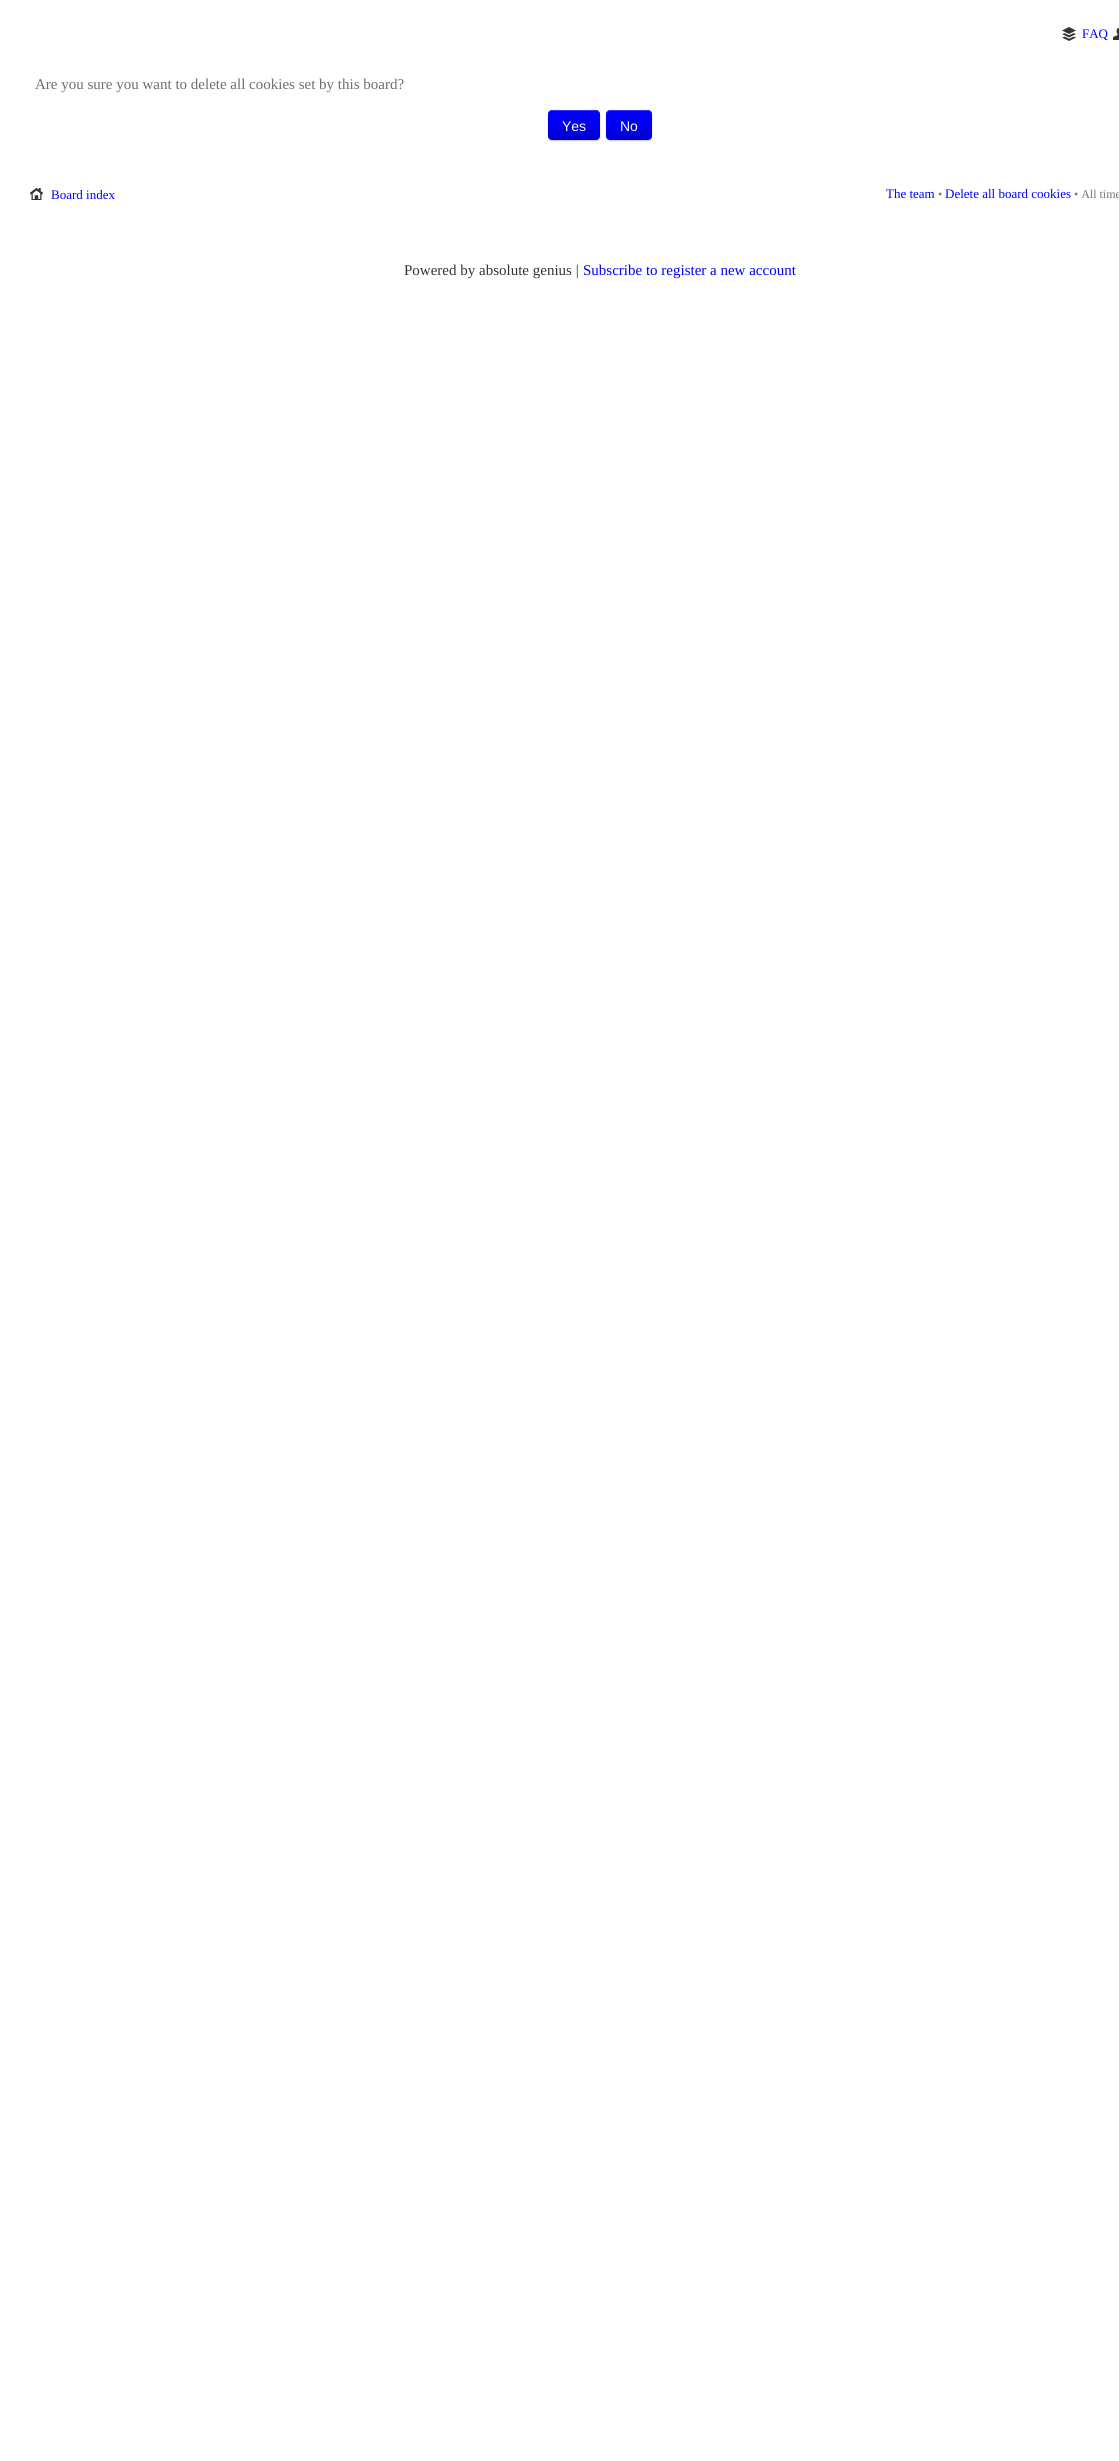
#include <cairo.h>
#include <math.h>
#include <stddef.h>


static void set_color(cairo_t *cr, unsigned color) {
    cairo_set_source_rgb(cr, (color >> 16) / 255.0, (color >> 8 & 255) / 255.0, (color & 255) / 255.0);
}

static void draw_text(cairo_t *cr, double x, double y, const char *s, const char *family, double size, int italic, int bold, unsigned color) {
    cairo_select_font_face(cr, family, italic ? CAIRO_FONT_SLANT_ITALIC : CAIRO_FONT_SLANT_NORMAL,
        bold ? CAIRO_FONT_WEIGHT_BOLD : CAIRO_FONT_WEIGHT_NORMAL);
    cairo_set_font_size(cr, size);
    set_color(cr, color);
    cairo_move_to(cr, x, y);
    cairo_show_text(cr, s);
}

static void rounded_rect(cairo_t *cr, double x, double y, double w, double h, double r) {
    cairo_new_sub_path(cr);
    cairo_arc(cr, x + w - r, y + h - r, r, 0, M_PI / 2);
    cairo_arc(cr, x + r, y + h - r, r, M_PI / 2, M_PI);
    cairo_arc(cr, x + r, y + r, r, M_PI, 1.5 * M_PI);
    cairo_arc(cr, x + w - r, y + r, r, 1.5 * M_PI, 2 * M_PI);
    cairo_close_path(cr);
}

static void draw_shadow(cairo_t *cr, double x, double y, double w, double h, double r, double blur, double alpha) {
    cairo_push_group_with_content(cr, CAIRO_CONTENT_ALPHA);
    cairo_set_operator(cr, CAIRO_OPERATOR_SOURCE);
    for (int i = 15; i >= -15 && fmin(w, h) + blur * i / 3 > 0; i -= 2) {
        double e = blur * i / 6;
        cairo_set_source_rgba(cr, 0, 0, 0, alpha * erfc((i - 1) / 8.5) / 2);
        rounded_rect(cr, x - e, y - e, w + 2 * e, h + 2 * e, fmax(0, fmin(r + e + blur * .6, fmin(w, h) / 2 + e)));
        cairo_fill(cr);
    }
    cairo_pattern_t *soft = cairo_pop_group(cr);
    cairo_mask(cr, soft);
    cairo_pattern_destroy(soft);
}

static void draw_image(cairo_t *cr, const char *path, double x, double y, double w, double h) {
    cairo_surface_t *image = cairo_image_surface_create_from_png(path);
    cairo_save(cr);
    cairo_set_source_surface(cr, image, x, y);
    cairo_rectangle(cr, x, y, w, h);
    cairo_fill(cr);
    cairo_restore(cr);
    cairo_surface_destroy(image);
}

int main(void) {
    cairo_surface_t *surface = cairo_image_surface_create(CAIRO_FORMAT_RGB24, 1119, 2461);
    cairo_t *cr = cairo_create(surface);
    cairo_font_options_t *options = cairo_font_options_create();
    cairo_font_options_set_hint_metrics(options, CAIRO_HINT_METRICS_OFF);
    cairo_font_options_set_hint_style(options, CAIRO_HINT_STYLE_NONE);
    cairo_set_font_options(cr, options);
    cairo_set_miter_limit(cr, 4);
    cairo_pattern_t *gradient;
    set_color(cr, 0xFFFFFF);
    cairo_paint(cr);
    draw_image(cr, "assets/img1.png", 1062, 27, 14, 14);
    draw_text(cr, 1082, 38, "FAQ", "Liberation Serif", 13, 0, 0, 0x0000FF);
    draw_image(cr, "assets/img2.png", 1113, 28, 6, 12);
    draw_text(cr, 35, 89, "Are you sure you want to delete all cookies set by this board?", "Liberation Serif", 15, 0, 0, 0x6E6E6E);
    set_color(cr, 0x000000);
    draw_shadow(cr, 548, 111, 52, 30, 4, 0.5, 0.2);
    gradient = cairo_pattern_create_linear(574, 110, 574, 140);
    cairo_pattern_add_color_stop_rgba(gradient, 0, 0, 0, 1, 1);
    cairo_pattern_add_color_stop_rgba(gradient, 0.45, 0, 0, 0.961, 1);
    cairo_pattern_add_color_stop_rgba(gradient, 1, 0, 0, 0.8, 1);
    cairo_set_source(cr, gradient);
    cairo_pattern_destroy(gradient);
    rounded_rect(cr, 548, 110, 52, 30, 4);
    cairo_fill(cr);
    set_color(cr, 0x3333FF);
    cairo_new_path(cr);
    cairo_move_to(cr, 552, 111);
    cairo_line_to(cr, 596, 111);
    cairo_curve_to(cr, 598, 111, 600, 113, 600, 115);
    cairo_curve_to(cr, 600, 109, 594, 110, 589, 110);
    cairo_line_to(cr, 559, 110);
    cairo_curve_to(cr, 554, 110, 548, 109, 548, 115);
    cairo_curve_to(cr, 548, 113, 550, 111, 552, 111);
    cairo_close_path(cr);
    cairo_fill(cr);
    draw_text(cr, 562, 131, "Yes", "Liberation Sans", 14, 0, 0, 0xFFFFFF);
    set_color(cr, 0x000000);
    draw_shadow(cr, 606, 111, 46, 30, 4, 0.5, 0.2);
    gradient = cairo_pattern_create_linear(629, 110, 629, 140);
    cairo_pattern_add_color_stop_rgba(gradient, 0, 0, 0, 1, 1);
    cairo_pattern_add_color_stop_rgba(gradient, 0.45, 0, 0, 0.961, 1);
    cairo_pattern_add_color_stop_rgba(gradient, 1, 0, 0, 0.8, 1);
    cairo_set_source(cr, gradient);
    cairo_pattern_destroy(gradient);
    rounded_rect(cr, 606, 110, 46, 30, 4);
    cairo_fill(cr);
    set_color(cr, 0x3333FF);
    cairo_new_path(cr);
    cairo_move_to(cr, 610, 111);
    cairo_line_to(cr, 648, 111);
    cairo_curve_to(cr, 650, 111, 652, 113, 652, 115);
    cairo_curve_to(cr, 652, 109, 646, 110, 642, 110);
    cairo_line_to(cr, 616, 110);
    cairo_curve_to(cr, 612, 110, 606, 109, 606, 115);
    cairo_curve_to(cr, 606, 113, 608, 111, 610, 111);
    cairo_close_path(cr);
    cairo_fill(cr);
    draw_text(cr, 620, 131, "No", "Liberation Sans", 14, 0, 0, 0xFFFFFF);
    draw_image(cr, "assets/img3.png", 30, 188, 13, 12);
    draw_text(cr, 51, 199, "Board index", "Liberation Serif", 13, 0, 0, 0x0000FF);
    draw_text(cr, 886, 198, "The team", "Liberation Serif", 13, 0, 0, 0x0000FF);
    draw_text(cr, 938, 198, "•", "Liberation Serif", 12, 0, 0, 0x777777);
    draw_text(cr, 945, 198, "Delete all board cookies", "Liberation Serif", 13, 0, 0, 0x0000FF);
    draw_text(cr, 1074, 198, "• All time", "Liberation Serif", 12, 0, 0, 0x777777);
    draw_text(cr, 404, 275, "Powered by absolute genius |", "Liberation Serif", 15, 0, 0, 0x333333);
    draw_text(cr, 583, 275, "Subscribe to register a new account", "Liberation Serif", 15, 0, 0, 0x0000FF);
    cairo_surface_write_to_png(surface, "output.png");
    cairo_font_options_destroy(options);
    cairo_destroy(cr);
    cairo_surface_destroy(surface);
    return 0;
}
